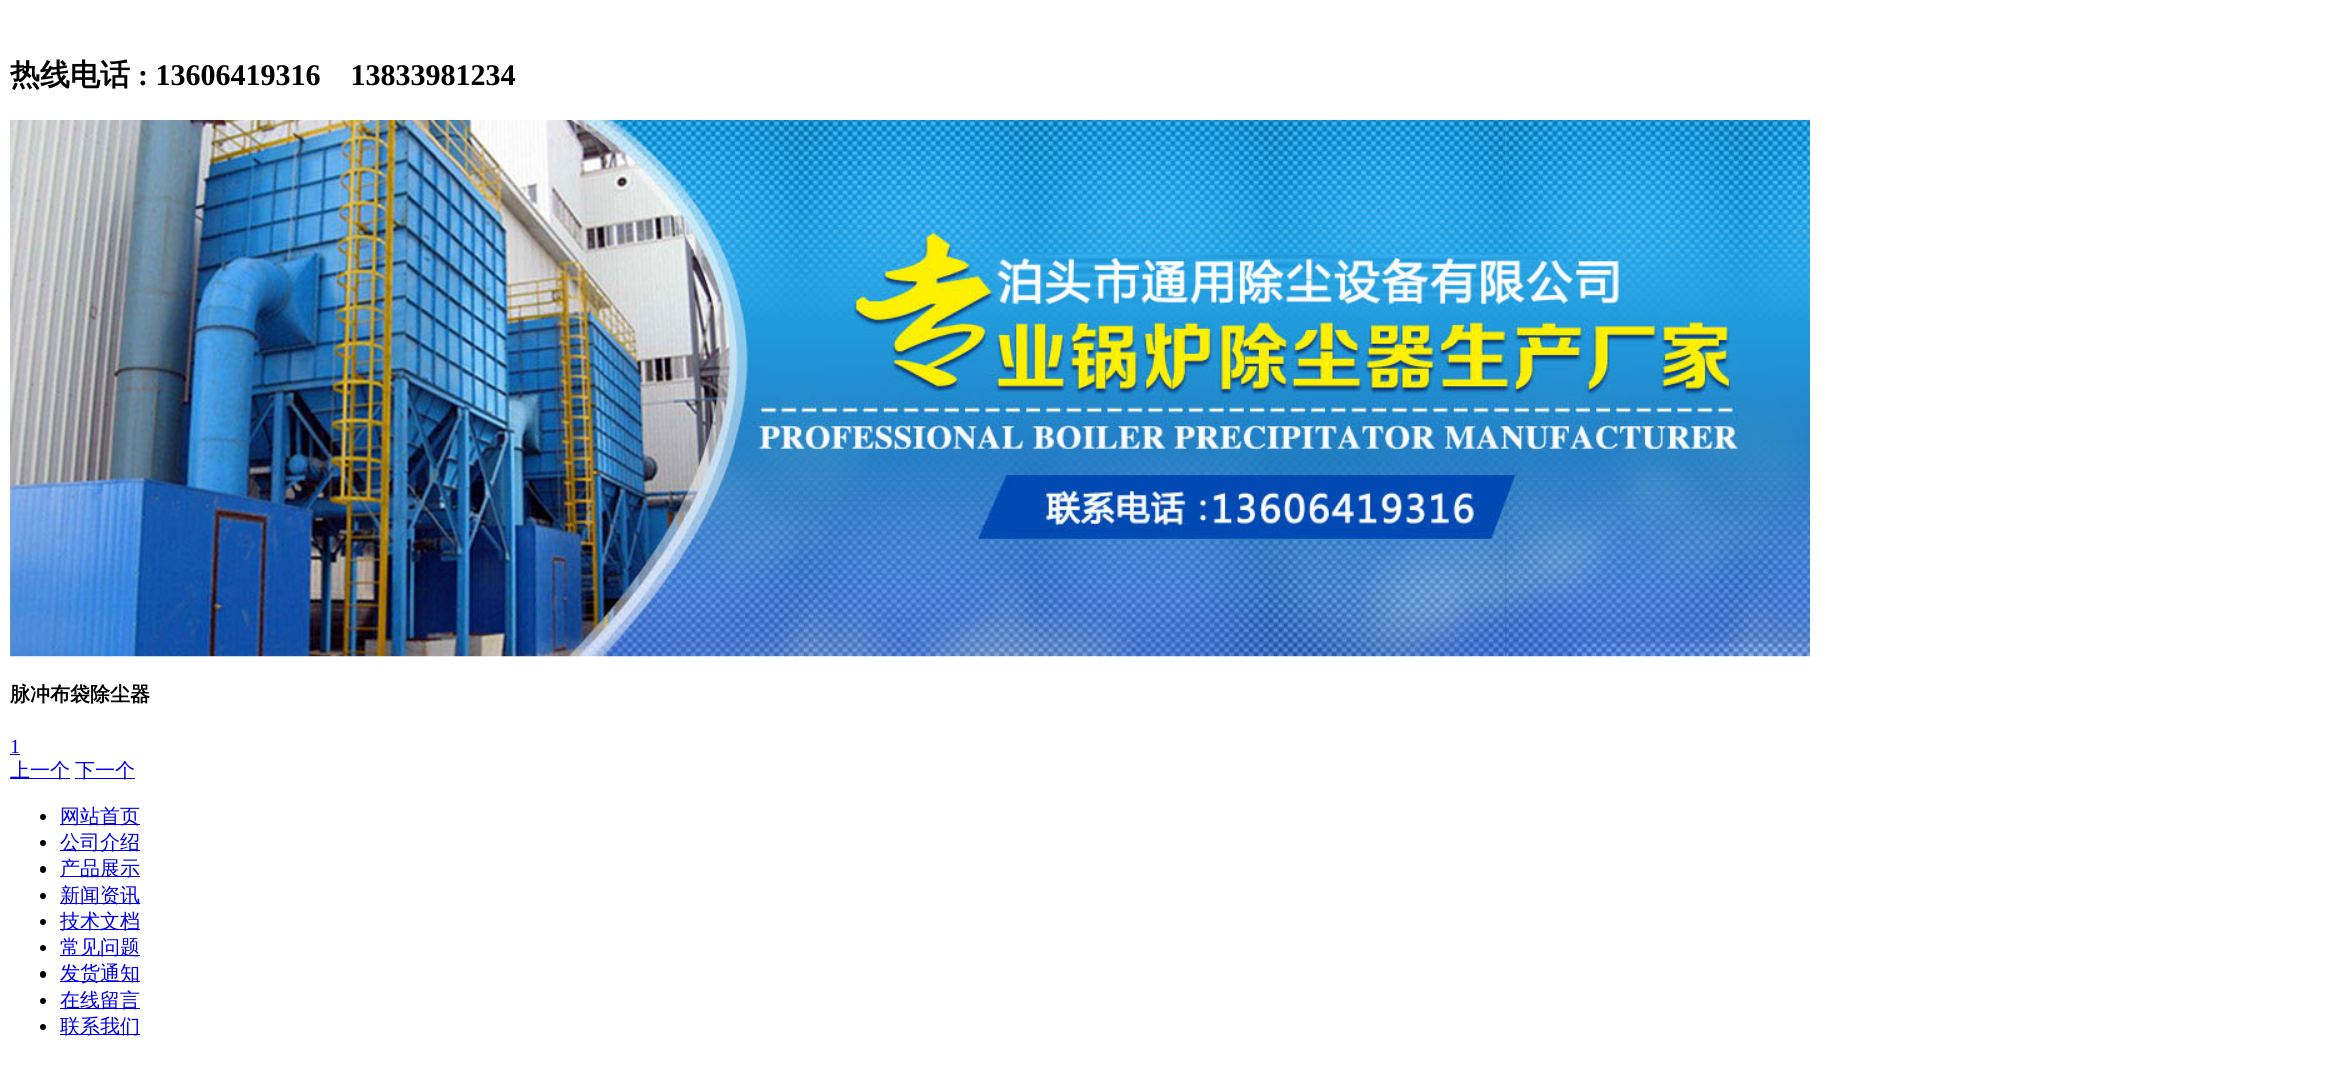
#include <cairo.h>
#include <math.h>
#include <stddef.h>


static void set_color(cairo_t *cr, unsigned color) {
    cairo_set_source_rgb(cr, (color >> 16) / 255.0, (color >> 8 & 255) / 255.0, (color & 255) / 255.0);
}

static void draw_text(cairo_t *cr, double x, double y, const char *s, const char *family, double size, int italic, int bold, unsigned color) {
    cairo_select_font_face(cr, family, italic ? CAIRO_FONT_SLANT_ITALIC : CAIRO_FONT_SLANT_NORMAL,
        bold ? CAIRO_FONT_WEIGHT_BOLD : CAIRO_FONT_WEIGHT_NORMAL);
    cairo_set_font_size(cr, size);
    set_color(cr, color);
    cairo_move_to(cr, x, y);
    cairo_show_text(cr, s);
}

static void fill_rect(cairo_t *cr, double x, double y, double w, double h, unsigned color) {
    set_color(cr, color);
    cairo_rectangle(cr, x, y, w, h);
    cairo_fill(cr);
}

static void rounded_rect(cairo_t *cr, double x, double y, double w, double h, double r) {
    cairo_new_sub_path(cr);
    cairo_arc(cr, x + w - r, y + h - r, r, 0, M_PI / 2);
    cairo_arc(cr, x + r, y + h - r, r, M_PI / 2, M_PI);
    cairo_arc(cr, x + r, y + r, r, M_PI, 1.5 * M_PI);
    cairo_arc(cr, x + w - r, y + r, r, 1.5 * M_PI, 2 * M_PI);
    cairo_close_path(cr);
}

static void draw_image(cairo_t *cr, const char *path, double x, double y, double w, double h) {
    cairo_surface_t *image = cairo_image_surface_create_from_png(path);
    cairo_save(cr);
    cairo_set_source_surface(cr, image, x, y);
    cairo_rectangle(cr, x, y, w, h);
    cairo_fill(cr);
    cairo_restore(cr);
    cairo_surface_destroy(image);
}

int main(void) {
    cairo_surface_t *surface = cairo_image_surface_create(CAIRO_FORMAT_RGB24, 2348, 1068);
    cairo_t *cr = cairo_create(surface);
    cairo_font_options_t *options = cairo_font_options_create();
    cairo_font_options_set_hint_metrics(options, CAIRO_HINT_METRICS_OFF);
    cairo_font_options_set_hint_style(options, CAIRO_HINT_STYLE_NONE);
    cairo_set_font_options(cr, options);
    cairo_set_miter_limit(cr, 4);
    set_color(cr, 0xFFFFFF);
    cairo_paint(cr);
    draw_text(cr, 10, 85, "热线电话", "WenQuanYi Zen Hei", 30, 0, 1, 0x000000);
    draw_text(cr, 138, 85, ": 13606419316    13833981234", "Liberation Serif", 30, 0, 1, 0x000000);
    draw_image(cr, "assets/img1.png", 10, 120, 1800, 537);
    draw_text(cr, 10, 701, "脉冲布袋除尘器", "WenQuanYi Zen Hei", 20, 0, 1, 0x000000);
    draw_text(cr, 10, 753, "1", "Liberation Serif", 20, 0, 0, 0x0000EE);
    fill_rect(cr, 10, 754, 10, 1, 0x0000EE);
    fill_rect(cr, 10, 778, 60, 1, 0x0000EE);
    draw_text(cr, 10, 777, "上一个", "WenQuanYi Zen Hei Medium", 20, 0, 0, 0x0000EE);
    fill_rect(cr, 75, 778, 60, 1, 0x0000EE);
    draw_text(cr, 75, 777, "下一个", "WenQuanYi Zen Hei Medium", 20, 0, 0, 0x0000EE);
    set_color(cr, 0x000000);
    cairo_new_path(cr);
    cairo_arc(cr, 43, 817, 3, 0, 2 * M_PI);
    cairo_fill(cr);
    fill_rect(cr, 60, 824, 80, 1, 0x0000EE);
    draw_text(cr, 60, 823, "网站首页", "WenQuanYi Zen Hei Medium", 20, 0, 0, 0x0000EE);
    set_color(cr, 0x000000);
    cairo_new_path(cr);
    cairo_arc(cr, 43, 843, 3, 0, 2 * M_PI);
    cairo_fill(cr);
    fill_rect(cr, 60, 850, 80, 1, 0x0000EE);
    draw_text(cr, 60, 849, "公司介绍", "WenQuanYi Zen Hei Medium", 20, 0, 0, 0x0000EE);
    set_color(cr, 0x000000);
    rounded_rect(cr, 40, 866, 6, 7, 3);
    cairo_fill(cr);
    fill_rect(cr, 60, 876, 80, 1, 0x0000EE);
    draw_text(cr, 60, 875, "产品展示", "WenQuanYi Zen Hei Medium", 20, 0, 0, 0x0000EE);
    set_color(cr, 0x000000);
    cairo_new_path(cr);
    cairo_arc(cr, 43, 896, 3, 0, 2 * M_PI);
    cairo_fill(cr);
    fill_rect(cr, 60, 903, 80, 1, 0x0000EE);
    draw_text(cr, 60, 902, "新闻资讯", "WenQuanYi Zen Hei Medium", 20, 0, 0, 0x0000EE);
    set_color(cr, 0x000000);
    cairo_new_path(cr);
    cairo_arc(cr, 43, 922, 3, 0, 2 * M_PI);
    cairo_fill(cr);
    fill_rect(cr, 60, 929, 80, 1, 0x0000EE);
    draw_text(cr, 60, 928, "技术文档", "WenQuanYi Zen Hei Medium", 20, 0, 0, 0x0000EE);
    set_color(cr, 0x000000);
    cairo_new_path(cr);
    cairo_arc(cr, 43, 948, 3, 0, 2 * M_PI);
    cairo_fill(cr);
    fill_rect(cr, 60, 955, 80, 1, 0x0000EE);
    draw_text(cr, 60, 954, "常见问题", "WenQuanYi Zen Hei Medium", 20, 0, 0, 0x0000EE);
    set_color(cr, 0x000000);
    rounded_rect(cr, 40, 971, 6, 7, 3);
    cairo_fill(cr);
    fill_rect(cr, 60, 981, 80, 1, 0x0000EE);
    draw_text(cr, 60, 980, "发货通知", "WenQuanYi Zen Hei Medium", 20, 0, 0, 0x0000EE);
    set_color(cr, 0x000000);
    cairo_new_path(cr);
    cairo_arc(cr, 43, 1001, 3, 0, 2 * M_PI);
    cairo_fill(cr);
    fill_rect(cr, 60, 1008, 80, 1, 0x0000EE);
    draw_text(cr, 60, 1007, "在线留言", "WenQuanYi Zen Hei Medium", 20, 0, 0, 0x0000EE);
    set_color(cr, 0x000000);
    cairo_new_path(cr);
    cairo_arc(cr, 43, 1027, 3, 0, 2 * M_PI);
    cairo_fill(cr);
    fill_rect(cr, 60, 1034, 80, 1, 0x0000EE);
    draw_text(cr, 60, 1033, "联系我们", "WenQuanYi Zen Hei Medium", 20, 0, 0, 0x0000EE);
    cairo_surface_write_to_png(surface, "output.png");
    cairo_font_options_destroy(options);
    cairo_destroy(cr);
    cairo_surface_destroy(surface);
    return 0;
}
